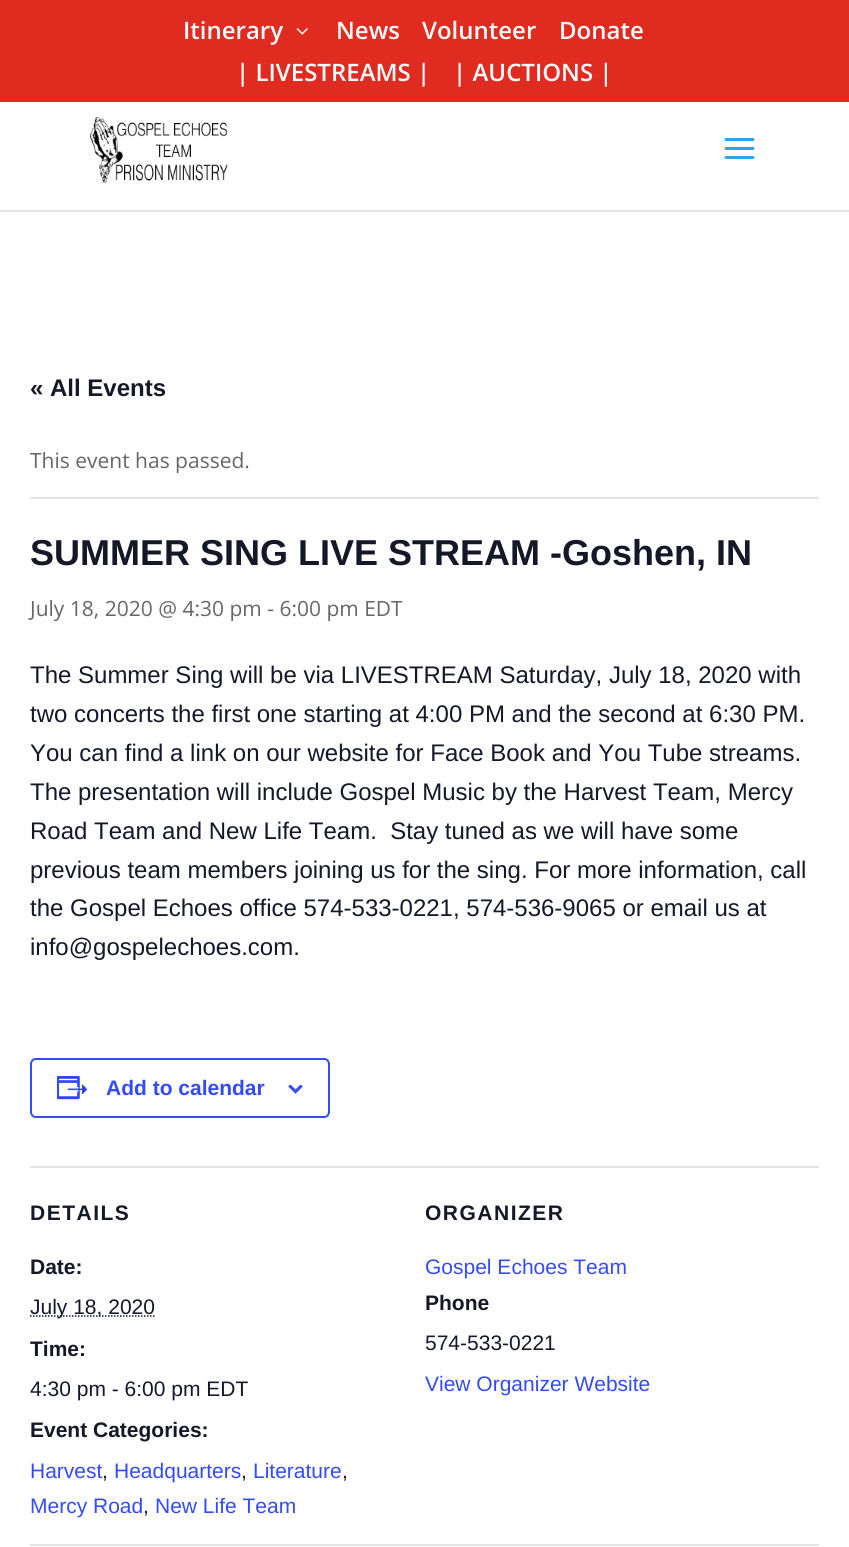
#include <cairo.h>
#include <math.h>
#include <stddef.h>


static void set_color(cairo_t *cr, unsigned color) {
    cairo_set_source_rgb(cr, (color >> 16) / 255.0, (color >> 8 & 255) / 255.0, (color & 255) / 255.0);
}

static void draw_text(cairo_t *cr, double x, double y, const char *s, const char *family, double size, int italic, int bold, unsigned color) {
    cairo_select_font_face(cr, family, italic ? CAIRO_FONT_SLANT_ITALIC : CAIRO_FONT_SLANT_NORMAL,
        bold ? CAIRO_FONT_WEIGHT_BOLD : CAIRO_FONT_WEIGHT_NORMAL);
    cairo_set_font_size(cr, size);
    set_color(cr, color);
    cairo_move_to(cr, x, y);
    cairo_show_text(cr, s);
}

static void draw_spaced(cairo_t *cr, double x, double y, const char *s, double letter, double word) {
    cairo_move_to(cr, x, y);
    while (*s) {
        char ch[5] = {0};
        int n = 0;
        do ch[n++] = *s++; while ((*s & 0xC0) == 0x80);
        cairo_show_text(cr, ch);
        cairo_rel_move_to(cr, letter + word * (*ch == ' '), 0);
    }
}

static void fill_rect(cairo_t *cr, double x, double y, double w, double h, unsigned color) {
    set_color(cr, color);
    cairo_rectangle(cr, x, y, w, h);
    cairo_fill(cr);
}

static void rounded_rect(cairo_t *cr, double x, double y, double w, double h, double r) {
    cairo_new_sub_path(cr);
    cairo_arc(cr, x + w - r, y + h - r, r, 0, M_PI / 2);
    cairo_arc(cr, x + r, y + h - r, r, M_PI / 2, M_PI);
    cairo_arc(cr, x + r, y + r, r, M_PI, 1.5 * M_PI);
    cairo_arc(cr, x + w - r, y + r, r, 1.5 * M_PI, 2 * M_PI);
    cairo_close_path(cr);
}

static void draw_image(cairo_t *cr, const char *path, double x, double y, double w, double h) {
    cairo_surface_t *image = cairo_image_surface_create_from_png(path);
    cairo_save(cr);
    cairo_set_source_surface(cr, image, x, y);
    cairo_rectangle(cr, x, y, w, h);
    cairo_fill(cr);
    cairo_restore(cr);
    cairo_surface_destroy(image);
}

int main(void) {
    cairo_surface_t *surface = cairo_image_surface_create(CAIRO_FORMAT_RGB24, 849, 1547);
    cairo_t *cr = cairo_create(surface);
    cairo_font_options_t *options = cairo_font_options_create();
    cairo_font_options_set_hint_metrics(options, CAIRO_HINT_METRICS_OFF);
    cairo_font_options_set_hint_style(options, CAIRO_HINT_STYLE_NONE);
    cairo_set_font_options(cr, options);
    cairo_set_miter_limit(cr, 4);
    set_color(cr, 0xFFFFFF);
    cairo_paint(cr);
    fill_rect(cr, 0, 0, 849, 102, 0xE02B20);
    draw_text(cr, 183, 39, "Itinerary", "Open Sans SemiBold", 24, 0, 0, 0xFFFFFF);
    draw_image(cr, "assets/img1.png", 296, 28, 12, 7);
    draw_text(cr, 336, 39, "News", "Open Sans SemiBold", 24, 0, 0, 0xFFFFFF);
    draw_text(cr, 422, 39, "Volunteer", "Open Sans SemiBold", 24, 0, 0, 0xFFFFFF);
    draw_text(cr, 559, 39, "Donate", "Open Sans SemiBold", 24, 0, 0, 0xFFFFFF);
    draw_text(cr, 236, 81, "| LIVESTREAMS |", "Open Sans SemiBold", 24, 0, 0, 0xFFFFFF);
    draw_text(cr, 453, 81, "| AUCTIONS |", "Open Sans SemiBold", 24, 0, 0, 0xFFFFFF);
    fill_rect(cr, 0, 210, 849, 2, 0xE6E6E6);
    draw_image(cr, "assets/img2.png", 90, 117, 138, 66);
    draw_image(cr, "assets/img3.png", 724, 138, 31, 21);
    draw_text(cr, 30, 396, "« All Events", "Liberation Sans", 24, 0, 1, 0x141827);
    fill_rect(cr, 30, 497, 789, 2, 0xE4E4E4);
    draw_text(cr, 30, 468, "This event has passed.", "Open Sans", 21, 0, 0, 0x666666);
    draw_text(cr, 30, 565, "SUMMER SING LIVE STREAM -Goshen, IN", "Liberation Sans", 36, 0, 1, 0x141827);
    draw_text(cr, 30, 616, "July 18, 2020 @ 4:30 pm - 6:00 pm EDT", "Open Sans", 21, 0, 0, 0x666666);
    draw_text(cr, 30, 683, "The Summer Sing will be via LIVESTREAM Saturday, July 18, 2020 with", "Liberation Sans", 24, 0, 0, 0x141827);
    draw_text(cr, 30, 722, "two concerts the first one starting at 4:00 PM and the second at 6:30 PM.", "Liberation Sans", 24, 0, 0, 0x141827);
    draw_text(cr, 30, 761, "You can find a link on our website for Face Book and You Tube streams.", "Liberation Sans", 24, 0, 0, 0x141827);
    draw_text(cr, 30, 800, "The presentation will include Gospel Music by the Harvest Team, Mercy", "Liberation Sans", 24, 0, 0, 0x141827);
    draw_text(cr, 30, 839, "Road Team and New Life Team.  Stay tuned as we will have some", "Liberation Sans", 24, 0, 0, 0x141827);
    draw_text(cr, 30, 878, "previous team members joining us for the sing. For more information, call", "Liberation Sans", 24, 0, 0, 0x141827);
    draw_text(cr, 30, 916, "the Gospel Echoes office 574-533-0221, 574-536-9065 or email us at", "Liberation Sans", 24, 0, 0, 0x141827);
    draw_text(cr, 30, 955, "info@gospelechoes.com.", "Liberation Sans", 24, 0, 0, 0x141827);
    rounded_rect(cr, 31, 1059, 298, 58, 5);
    set_color(cr, 0x334AFF);
    cairo_stroke(cr);
    draw_image(cr, "assets/img4.png", 57, 1076, 31, 24);
    draw_text(cr, 106, 1095, "Add to calendar", "Liberation Sans", 21, 0, 1, 0x334AFF);
    draw_image(cr, "assets/img5.png", 288, 1085, 15, 9);
    fill_rect(cr, 30, 1166, 789, 2, 0xE4E4E4);
    set_color(cr, 0x141827);
    draw_spaced(cr, 30, 1220, "DETAILS", 1.5, 0);
    draw_text(cr, 30, 1274, "Date:", "Liberation Sans", 21, 0, 1, 0x141827);
    cairo_new_path(cr);
    cairo_move_to(cr, 30, 1316);
    cairo_line_to(cr, 155, 1316);
    cairo_set_line_width(cr, 1.5);
    cairo_set_dash(cr, (double[]){1.5, 1.5}, 2, 0);
    cairo_stroke(cr);
    draw_text(cr, 30, 1314, "July 18, 2020", "Liberation Sans", 21, 0, 0, 0x141827);
    draw_text(cr, 30, 1356, "Time:", "Liberation Sans", 21, 0, 1, 0x141827);
    draw_text(cr, 30, 1396, "4:30 pm - 6:00 pm EDT", "Liberation Sans", 21, 0, 0, 0x141827);
    draw_text(cr, 30, 1437, "Event Categories:", "Liberation Sans", 21, 0, 1, 0x141827);
    draw_text(cr, 30, 1478, "Harvest", "Liberation Sans", 21, 0, 0, 0x334AFF);
    draw_text(cr, 102, 1478, ",", "Liberation Sans", 21, 0, 0, 0x141827);
    draw_text(cr, 114, 1478, "Headquarters", "Liberation Sans", 21, 0, 0, 0x334AFF);
    draw_text(cr, 241, 1478, ",", "Liberation Sans", 21, 0, 0, 0x141827);
    draw_text(cr, 253, 1478, "Literature", "Liberation Sans", 21, 0, 0, 0x334AFF);
    draw_text(cr, 342, 1478, ",", "Liberation Sans", 21, 0, 0, 0x141827);
    draw_text(cr, 30, 1513, "Mercy Road", "Liberation Sans", 21, 0, 0, 0x334AFF);
    draw_text(cr, 143, 1513, ",", "Liberation Sans", 21, 0, 0, 0x141827);
    draw_text(cr, 155, 1513, "New Life Team", "Liberation Sans", 21, 0, 0, 0x334AFF);
    cairo_select_font_face(cr, "Liberation Sans", CAIRO_FONT_SLANT_NORMAL, CAIRO_FONT_WEIGHT_BOLD);
    set_color(cr, 0x141827);
    draw_spaced(cr, 425, 1220, "ORGANIZER", 1.5, 0);
    draw_text(cr, 425, 1274, "Gospel Echoes Team", "Liberation Sans", 21, 0, 0, 0x334AFF);
    draw_text(cr, 425, 1310, "Phone", "Liberation Sans", 21, 0, 1, 0x141827);
    draw_text(cr, 425, 1350, "574-533-0221", "Liberation Sans", 21, 0, 0, 0x141827);
    draw_text(cr, 425, 1391, "View Organizer Website", "Liberation Sans", 21, 0, 0, 0x334AFF);
    fill_rect(cr, 30, 1544, 789, 2, 0xE4E4E4);
    cairo_surface_write_to_png(surface, "output.png");
    cairo_font_options_destroy(options);
    cairo_destroy(cr);
    cairo_surface_destroy(surface);
    return 0;
}
